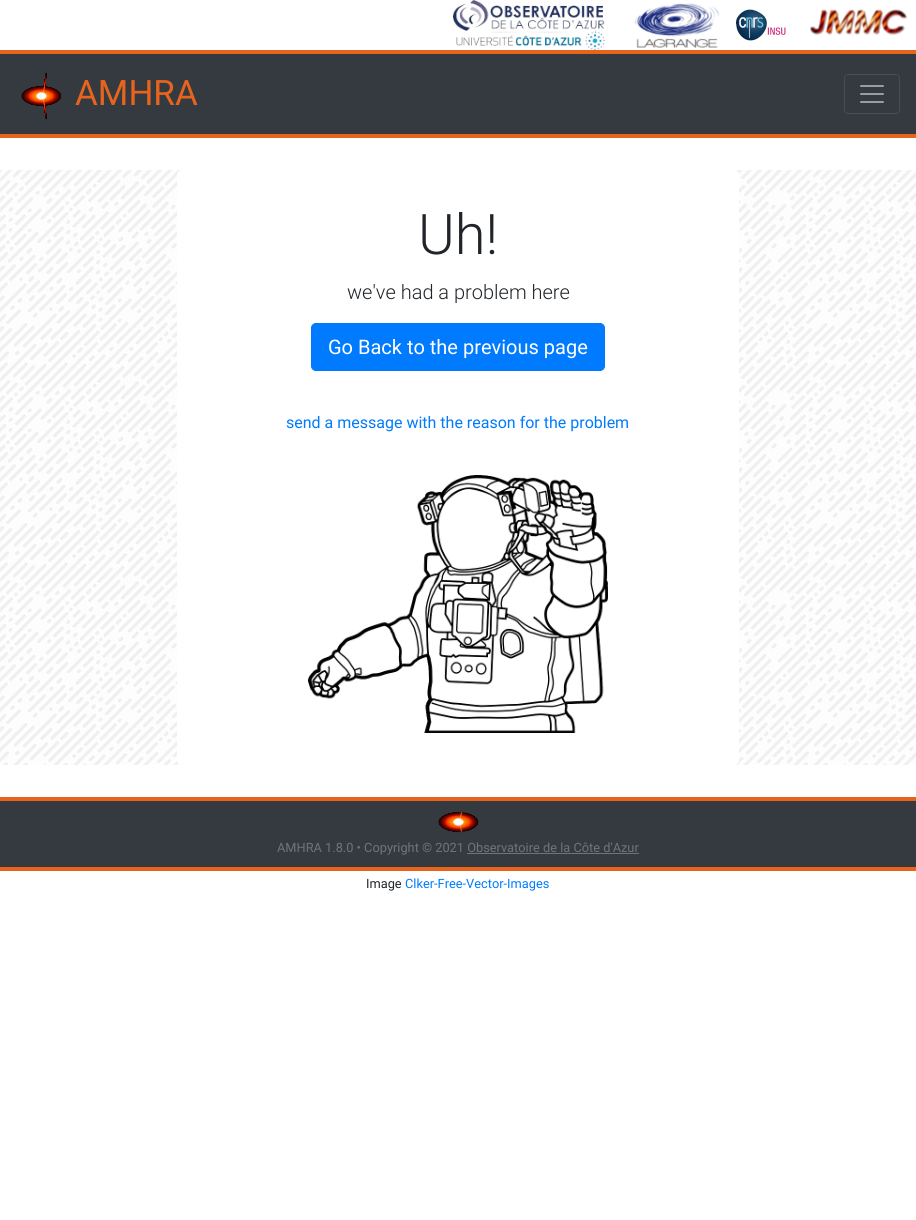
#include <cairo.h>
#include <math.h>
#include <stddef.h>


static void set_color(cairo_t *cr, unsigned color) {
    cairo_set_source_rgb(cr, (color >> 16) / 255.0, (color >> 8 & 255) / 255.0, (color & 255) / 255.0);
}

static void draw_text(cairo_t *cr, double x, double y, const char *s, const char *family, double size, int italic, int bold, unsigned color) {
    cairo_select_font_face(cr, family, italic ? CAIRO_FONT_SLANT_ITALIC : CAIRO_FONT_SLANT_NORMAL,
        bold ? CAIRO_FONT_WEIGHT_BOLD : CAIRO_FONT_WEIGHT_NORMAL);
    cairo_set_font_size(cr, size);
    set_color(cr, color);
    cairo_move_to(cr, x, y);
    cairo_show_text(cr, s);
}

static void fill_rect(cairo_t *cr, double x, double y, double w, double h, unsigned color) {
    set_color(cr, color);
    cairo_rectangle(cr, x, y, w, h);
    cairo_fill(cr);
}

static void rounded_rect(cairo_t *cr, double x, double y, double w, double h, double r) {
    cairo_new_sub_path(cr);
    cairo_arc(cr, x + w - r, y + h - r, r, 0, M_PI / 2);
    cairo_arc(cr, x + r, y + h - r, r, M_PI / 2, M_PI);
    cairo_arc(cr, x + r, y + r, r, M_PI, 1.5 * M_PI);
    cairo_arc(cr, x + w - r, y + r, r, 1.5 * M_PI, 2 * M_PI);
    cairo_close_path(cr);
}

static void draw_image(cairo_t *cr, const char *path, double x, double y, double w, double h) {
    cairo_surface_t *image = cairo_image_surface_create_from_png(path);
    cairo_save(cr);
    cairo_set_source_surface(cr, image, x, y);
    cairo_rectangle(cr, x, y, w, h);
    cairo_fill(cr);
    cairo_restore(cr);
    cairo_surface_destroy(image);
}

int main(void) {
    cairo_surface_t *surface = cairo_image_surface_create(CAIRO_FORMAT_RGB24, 916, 1220);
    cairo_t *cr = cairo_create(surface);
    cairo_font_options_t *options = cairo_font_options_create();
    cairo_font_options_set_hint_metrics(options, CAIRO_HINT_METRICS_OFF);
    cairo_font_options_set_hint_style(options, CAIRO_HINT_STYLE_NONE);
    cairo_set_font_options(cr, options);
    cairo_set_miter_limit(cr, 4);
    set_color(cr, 0xFFFFFF);
    cairo_paint(cr);
    draw_image(cr, "assets/img1.png", 453, 0, 152, 50);
    draw_image(cr, "assets/img2.png", 634, 3, 86, 45);
    draw_image(cr, "assets/img3.png", 736, 9, 50, 32);
    draw_image(cr, "assets/img4.png", 810, 9, 97, 26);
    fill_rect(cr, 0, 54, 916, 80, 0x343A40);
    fill_rect(cr, 0, 50, 916, 4, 0xE8641D);
    fill_rect(cr, 0, 134, 916, 4, 0xE8641D);
    draw_image(cr, "assets/img5.png", 21, 72, 41, 48);
    draw_text(cr, 75, 105, "AMHRA", "Roboto", 35, 0, 0, 0xE8641D);
    rounded_rect(cr, 844.5, 74.5, 55, 39, 3.5);
    set_color(cr, 0x484E53);
    cairo_set_line_width(cr, 1);
    cairo_stroke(cr);
    draw_image(cr, "assets/img6.png", 860, 85, 24, 18);
    draw_image(cr, "assets/img7.png", 0, 170, 916, 595);
    set_color(cr, 0xFFFFFF);
    rounded_rect(cr, 177, 170, 562, 595, 5);
    cairo_fill(cr);
    draw_text(cr, 418, 254, "Uh!", "Roboto Light", 56, 0, 0, 0x212529);
    draw_text(cr, 347, 299, "we've had a problem here", "Roboto Light", 20, 0, 0, 0x212529);
    set_color(cr, 0x007BFF);
    rounded_rect(cr, 311.5, 323.5, 293, 47, 4.5);
    cairo_fill_preserve(cr);
    cairo_stroke(cr);
    draw_text(cr, 328, 354, "Go Back to the previous page", "Roboto", 20, 0, 0, 0xFFFFFF);
    draw_text(cr, 286, 428, "send a message with the reason for the problem", "Roboto", 16, 0, 0, 0x007BFF);
    draw_image(cr, "assets/img8.png", 308, 475, 300, 258);
    fill_rect(cr, 0, 801, 916, 66, 0x343A40);
    fill_rect(cr, 0, 797, 916, 4, 0xE8641D);
    fill_rect(cr, 0, 867, 916, 4, 0xE8641D);
    draw_image(cr, "assets/img9.png", 438, 811, 41, 22);
    draw_text(cr, 277, 852, "AMHRA 1.8.0 • Copyright © 2021 Observatoire de la Côte d'Azur", "Roboto", 12.8, 0, 0, 0x6C757D);
    fill_rect(cr, 467, 853, 172, 1, 0x6C757D);
    draw_text(cr, 366, 888, "Image", "Roboto", 12.8, 0, 0, 0x212529);
    draw_text(cr, 405, 888, "Clker-Free-Vector-Images", "Roboto", 12.8, 0, 0, 0x007BFF);
    cairo_surface_write_to_png(surface, "output.png");
    cairo_font_options_destroy(options);
    cairo_destroy(cr);
    cairo_surface_destroy(surface);
    return 0;
}
